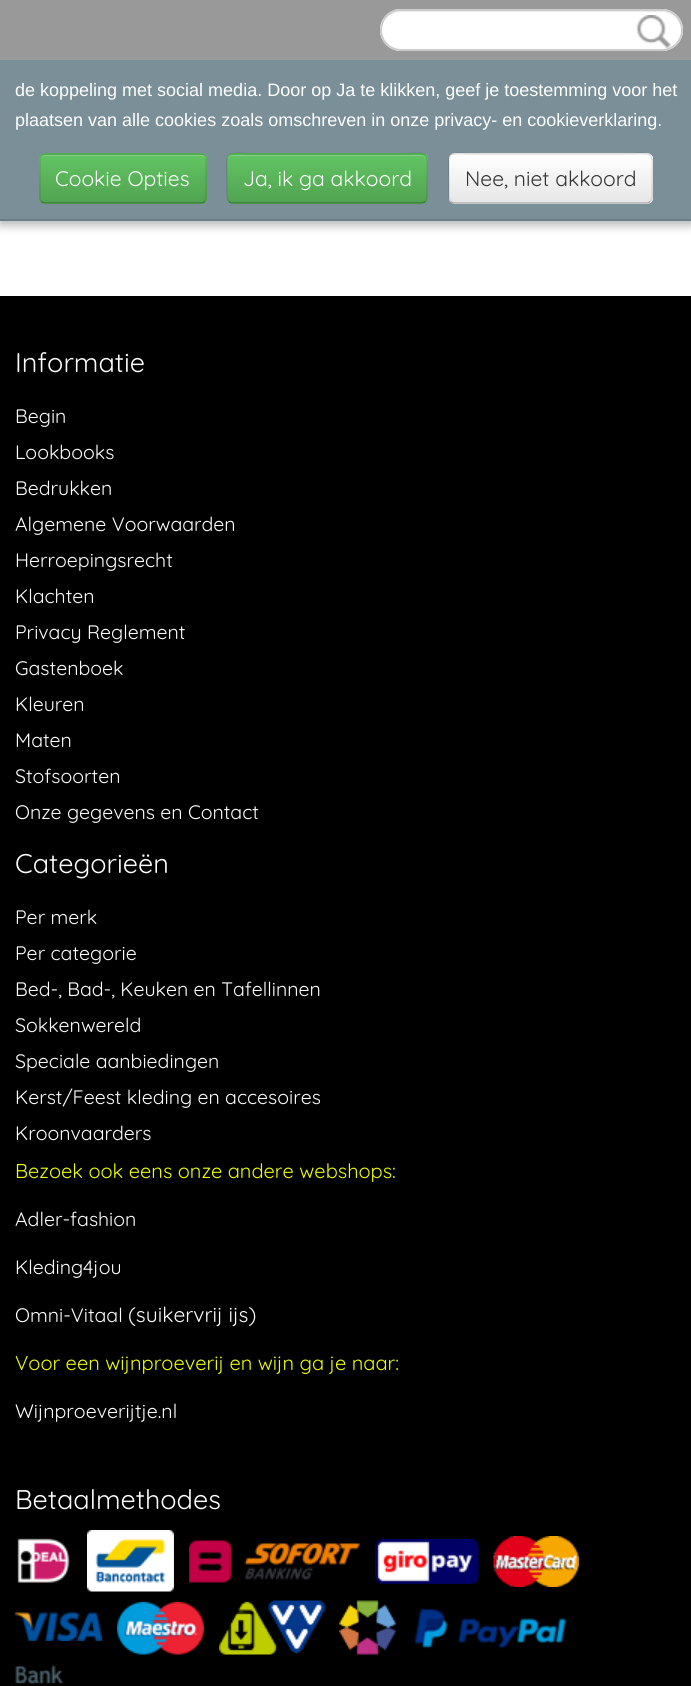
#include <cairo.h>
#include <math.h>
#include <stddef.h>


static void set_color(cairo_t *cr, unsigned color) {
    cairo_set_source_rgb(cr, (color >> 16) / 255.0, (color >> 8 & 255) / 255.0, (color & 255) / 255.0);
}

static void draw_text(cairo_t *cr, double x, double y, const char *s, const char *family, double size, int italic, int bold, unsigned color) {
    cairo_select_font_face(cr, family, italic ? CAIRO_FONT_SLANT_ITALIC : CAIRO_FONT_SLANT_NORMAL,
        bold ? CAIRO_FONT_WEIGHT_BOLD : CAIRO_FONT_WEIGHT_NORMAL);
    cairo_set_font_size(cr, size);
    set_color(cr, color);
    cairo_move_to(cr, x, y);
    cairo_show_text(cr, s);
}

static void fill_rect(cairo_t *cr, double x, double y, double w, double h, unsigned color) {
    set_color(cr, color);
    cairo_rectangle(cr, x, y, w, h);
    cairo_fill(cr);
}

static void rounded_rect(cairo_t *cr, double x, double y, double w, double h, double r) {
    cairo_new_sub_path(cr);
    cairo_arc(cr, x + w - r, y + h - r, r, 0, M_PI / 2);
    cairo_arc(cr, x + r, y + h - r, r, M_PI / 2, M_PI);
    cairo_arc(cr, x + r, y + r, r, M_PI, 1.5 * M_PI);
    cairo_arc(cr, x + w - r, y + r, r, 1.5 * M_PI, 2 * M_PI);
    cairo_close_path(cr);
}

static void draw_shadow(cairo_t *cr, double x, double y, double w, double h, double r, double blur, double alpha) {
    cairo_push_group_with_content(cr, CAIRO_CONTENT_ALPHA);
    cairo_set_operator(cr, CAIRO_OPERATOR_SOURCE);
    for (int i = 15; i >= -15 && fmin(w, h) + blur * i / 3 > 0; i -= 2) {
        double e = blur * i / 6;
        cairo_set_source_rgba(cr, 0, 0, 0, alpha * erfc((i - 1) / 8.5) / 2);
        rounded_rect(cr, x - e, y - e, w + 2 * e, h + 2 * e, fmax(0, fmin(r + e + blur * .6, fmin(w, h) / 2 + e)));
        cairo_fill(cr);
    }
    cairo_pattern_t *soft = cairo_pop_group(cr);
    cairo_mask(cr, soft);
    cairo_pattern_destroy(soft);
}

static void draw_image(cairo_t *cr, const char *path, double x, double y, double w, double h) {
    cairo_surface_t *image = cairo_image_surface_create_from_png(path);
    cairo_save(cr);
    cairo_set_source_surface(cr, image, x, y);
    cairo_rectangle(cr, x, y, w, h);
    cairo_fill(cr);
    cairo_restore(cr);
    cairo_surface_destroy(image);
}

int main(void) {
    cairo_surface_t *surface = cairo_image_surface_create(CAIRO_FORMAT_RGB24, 691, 1686);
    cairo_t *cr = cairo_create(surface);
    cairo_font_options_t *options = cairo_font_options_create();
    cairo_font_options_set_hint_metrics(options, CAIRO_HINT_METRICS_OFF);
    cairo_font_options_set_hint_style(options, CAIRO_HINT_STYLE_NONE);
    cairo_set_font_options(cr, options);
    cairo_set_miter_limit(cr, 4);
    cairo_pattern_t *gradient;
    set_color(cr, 0xFFFFFF);
    cairo_paint(cr);
    set_color(cr, 0x000000);
    draw_shadow(cr, 0, 5, 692, 220, 0, 5, 0.3);
    fill_rect(cr, 0, 0, 691, 60, 0x999999);
    set_color(cr, 0xFFFFFF);
    rounded_rect(cr, 380, 9, 303, 42, 21);
    cairo_fill(cr);
    set_color(cr, 0xECECEC);
    cairo_new_path(cr);
    cairo_move_to(cr, 400, 12);
    cairo_line_to(cr, 662, 12);
    cairo_curve_to(cr, 672, 12, 681, 21, 681, 31);
    cairo_curve_to(cr, 681, 20, 672, 11, 662, 11);
    cairo_line_to(cr, 400, 11);
    cairo_curve_to(cr, 390, 11, 381, 20, 381, 31);
    cairo_curve_to(cr, 381, 21, 390, 12, 400, 12);
    cairo_close_path(cr);
    cairo_fill(cr);
    rounded_rect(cr, 381, 10, 301, 40, 20);
    set_color(cr, 0xCCCCCC);
    cairo_stroke(cr);
    draw_image(cr, "assets/img1.png", 636, 15, 35, 33);
    fill_rect(cr, 0, 60, 691, 159, 0x7A8F98);
    fill_rect(cr, 0, 219, 691, 2, 0x697E87);
    draw_text(cr, 15, 96, "de koppeling met social media. Door op Ja te klikken, geef je toestemming voor het", "Liberation Sans", 18, 0, 0, 0xFFFFFF);
    draw_text(cr, 15, 126, "plaatsen van alle cookies zoals omschreven in onze privacy- en cookieverklaring.", "Liberation Sans", 18, 0, 0, 0xFFFFFF);
    set_color(cr, 0x5BB75B);
    rounded_rect(cr, 39, 153, 168, 51, 6);
    cairo_fill(cr);
    cairo_save(cr);
    rounded_rect(cr, 39, 153, 168, 51, 6);
    cairo_clip(cr);
    gradient = cairo_pattern_create_linear(123, 155, 123, 203);
    cairo_pattern_add_color_stop_rgba(gradient, 0, 0.384, 0.769, 0.384, 1);
    cairo_pattern_add_color_stop_rgba(gradient, 1, 0.318, 0.639, 0.318, 1);
    cairo_set_source(cr, gradient);
    cairo_pattern_destroy(gradient);
    cairo_rectangle(cr, 39, 155, 168, 48);
    cairo_fill(cr);
    cairo_restore(cr);
    set_color(cr, 0x81D081);
    cairo_new_path(cr);
    cairo_move_to(cr, 45, 156);
    cairo_line_to(cr, 201, 156);
    cairo_curve_to(cr, 203, 156, 206, 158, 206, 160);
    cairo_curve_to(cr, 206, 157, 204, 155, 201, 155);
    cairo_line_to(cr, 46, 155);
    cairo_curve_to(cr, 44, 155, 43, 156, 42, 157);
    cairo_close_path(cr);
    cairo_fill(cr);
    cairo_new_path(cr);
    cairo_move_to(cr, 204.5, 201.5);
    cairo_curve_to(cr, 203.5, 202.5, 202.5, 203, 201, 203);
    cairo_line_to(cr, 45, 203);
    cairo_curve_to(cr, 43.5, 203, 42.5, 202.5, 41.5, 201.5);
    cairo_set_source_rgba(cr, 0, 0, 0, 0.25);
    cairo_set_line_width(cr, 1.5);
    cairo_stroke(cr);
    cairo_new_path(cr);
    cairo_move_to(cr, 41.5, 201.5);
    cairo_curve_to(cr, 40.5, 200.5, 40, 199.5, 40, 198);
    cairo_line_to(cr, 40, 159);
    cairo_curve_to(cr, 40, 157.5, 40.5, 156.5, 41.5, 155.5);
    cairo_curve_to(cr, 42.5, 154.5, 43.5, 154, 45, 154);
    cairo_line_to(cr, 201, 154);
    cairo_curve_to(cr, 202.5, 154, 203.5, 154.5, 204.5, 155.5);
    cairo_curve_to(cr, 205.5, 156.5, 206, 157.5, 206, 159);
    cairo_line_to(cr, 206, 198);
    cairo_curve_to(cr, 206, 199.5, 205.5, 200.5, 204.5, 201.5);
    cairo_set_source_rgba(cr, 0, 0, 0, 0.1);
    cairo_stroke(cr);
    draw_text(cr, 55, 186, "Cookie Opties", "Quicksand", 21, 0, 0, 0xFFFFFF);
    set_color(cr, 0x5BB75B);
    rounded_rect(cr, 227, 153, 201, 51, 6);
    cairo_fill(cr);
    cairo_save(cr);
    rounded_rect(cr, 227, 153, 201, 51, 6);
    cairo_clip(cr);
    gradient = cairo_pattern_create_linear(327, 155, 327, 203);
    cairo_pattern_add_color_stop_rgba(gradient, 0, 0.384, 0.769, 0.384, 1);
    cairo_pattern_add_color_stop_rgba(gradient, 1, 0.318, 0.639, 0.318, 1);
    cairo_set_source(cr, gradient);
    cairo_pattern_destroy(gradient);
    cairo_rectangle(cr, 227, 155, 201, 48);
    cairo_fill(cr);
    cairo_restore(cr);
    set_color(cr, 0x81D081);
    cairo_new_path(cr);
    cairo_move_to(cr, 232, 156);
    cairo_line_to(cr, 422, 156);
    cairo_curve_to(cr, 424, 156, 426, 158, 426, 160);
    cairo_curve_to(cr, 426, 157, 424, 155, 421, 155);
    cairo_line_to(cr, 233, 155);
    cairo_curve_to(cr, 230, 155, 228, 157, 228, 160);
    cairo_curve_to(cr, 228, 158, 230, 156, 232, 156);
    cairo_close_path(cr);
    cairo_fill(cr);
    cairo_new_path(cr);
    cairo_move_to(cr, 425, 201.5);
    cairo_curve_to(cr, 424, 202.5, 423, 203, 421.5, 203);
    cairo_line_to(cr, 232.5, 203);
    cairo_curve_to(cr, 231, 203, 230, 202.5, 229, 201.5);
    cairo_set_source_rgba(cr, 0, 0, 0, 0.25);
    cairo_stroke(cr);
    cairo_new_path(cr);
    cairo_move_to(cr, 229, 201.5);
    cairo_curve_to(cr, 226.5, 199, 227, 194.5, 227, 191.5);
    cairo_line_to(cr, 227, 185);
    cairo_curve_to(cr, 227, 146, 221, 154, 264, 154);
    cairo_line_to(cr, 390, 154);
    cairo_curve_to(cr, 433, 154, 427, 146, 427, 185);
    cairo_line_to(cr, 427, 191.5);
    cairo_curve_to(cr, 427, 194.5, 427.5, 199, 425, 201.5);
    cairo_set_source_rgba(cr, 0, 0, 0, 0.1);
    cairo_stroke(cr);
    draw_text(cr, 243, 186, "Ja, ik ga akkoord", "Quicksand", 21, 0, 0, 0xFFFFFF);
    set_color(cr, 0xF5F5F5);
    rounded_rect(cr, 449, 153, 204, 51, 6);
    cairo_fill(cr);
    cairo_save(cr);
    rounded_rect(cr, 449, 153, 204, 51, 6);
    cairo_clip(cr);
    gradient = cairo_pattern_create_linear(551, 155, 551, 203);
    cairo_pattern_add_color_stop_rgba(gradient, 0, 1, 1, 1, 1);
    cairo_pattern_add_color_stop_rgba(gradient, 1, 0.902, 0.902, 0.902, 1);
    cairo_set_source(cr, gradient);
    cairo_pattern_destroy(gradient);
    cairo_rectangle(cr, 449, 155, 204, 48);
    cairo_fill(cr);
    cairo_restore(cr);
    cairo_new_path(cr);
    cairo_move_to(cr, 650, 201.5);
    cairo_curve_to(cr, 649, 202.5, 648, 203, 646.5, 203);
    cairo_line_to(cr, 454.5, 203);
    cairo_curve_to(cr, 453, 203, 452, 202.5, 451, 201.5);
    cairo_set_source_rgba(cr, 0, 0, 0, 0.25);
    cairo_stroke(cr);
    cairo_new_path(cr);
    cairo_move_to(cr, 451, 201.5);
    cairo_curve_to(cr, 448.5, 199, 449, 194.5, 449, 191.5);
    cairo_line_to(cr, 449, 185);
    cairo_curve_to(cr, 449, 146, 443, 154, 486.5, 154);
    cairo_line_to(cr, 614.5, 154);
    cairo_curve_to(cr, 658, 154, 652, 146, 652, 185);
    cairo_line_to(cr, 652, 191.5);
    cairo_curve_to(cr, 652, 194.5, 652.5, 199, 650, 201.5);
    cairo_set_source_rgba(cr, 0, 0, 0, 0.1);
    cairo_stroke(cr);
    draw_text(cr, 465, 186, "Nee, niet akkoord", "Quicksand", 21, 0, 0, 0x333333);
    fill_rect(cr, 0, 296, 691, 1390, 0x000000);
    draw_text(cr, 15, 372, "Informatie", "Quicksand", 27, 0, 0, 0xFFFFFF);
    draw_text(cr, 15, 423, "Begin", "Quicksand", 19.5, 0, 0, 0xFFFFFF);
    draw_text(cr, 15, 459, "Lookbooks", "Quicksand", 19.5, 0, 0, 0xFFFFFF);
    draw_text(cr, 15, 495, "Bedrukken", "Quicksand", 19.5, 0, 0, 0xFFFFFF);
    draw_text(cr, 15, 531, "Algemene Voorwaarden", "Quicksand", 19.5, 0, 0, 0xFFFFFF);
    draw_text(cr, 15, 567, "Herroepingsrecht", "Quicksand", 19.5, 0, 0, 0xFFFFFF);
    draw_text(cr, 15, 603, "Klachten", "Quicksand", 19.5, 0, 0, 0xFFFFFF);
    draw_text(cr, 15, 639, "Privacy Reglement", "Quicksand", 19.5, 0, 0, 0xFFFFFF);
    draw_text(cr, 15, 675, "Gastenboek", "Quicksand", 19.5, 0, 0, 0xFFFFFF);
    draw_text(cr, 15, 711, "Kleuren", "Quicksand", 19.5, 0, 0, 0xFFFFFF);
    draw_text(cr, 15, 747, "Maten", "Quicksand", 19.5, 0, 0, 0xFFFFFF);
    draw_text(cr, 15, 783, "Stofsoorten", "Quicksand", 19.5, 0, 0, 0xFFFFFF);
    draw_text(cr, 15, 819, "Onze gegevens en Contact", "Quicksand", 19.5, 0, 0, 0xFFFFFF);
    draw_text(cr, 15, 873, "Categorieën", "Quicksand", 27, 0, 0, 0xFFFFFF);
    draw_text(cr, 15, 924, "Per merk", "Quicksand", 19.5, 0, 0, 0xFFFFFF);
    draw_text(cr, 15, 960, "Per categorie", "Quicksand", 19.5, 0, 0, 0xFFFFFF);
    draw_text(cr, 15, 996, "Bed-, Bad-, Keuken en Tafellinnen", "Quicksand", 19.5, 0, 0, 0xFFFFFF);
    draw_text(cr, 15, 1032, "Sokkenwereld", "Quicksand", 19.5, 0, 0, 0xFFFFFF);
    draw_text(cr, 15, 1068, "Speciale aanbiedingen", "Quicksand", 19.5, 0, 0, 0xFFFFFF);
    draw_text(cr, 15, 1104, "Kerst/Feest kleding en accesoires", "Quicksand", 19.5, 0, 0, 0xFFFFFF);
    draw_text(cr, 15, 1140, "Kroonvaarders", "Quicksand", 19.5, 0, 0, 0xFFFFFF);
    draw_text(cr, 15, 1178, "Bezoek ook eens onze andere webshops:", "Quicksand", 20, 0, 0, 0xEEFF00);
    draw_text(cr, 15, 1226, "Adler-fashion", "Quicksand", 19.5, 0, 0, 0xFFFFFF);
    draw_text(cr, 15, 1274, "Kleding4jou", "Quicksand", 19.5, 0, 0, 0xFFFFFF);
    draw_text(cr, 15, 1322, "Omni-Vitaal", "Quicksand", 19.5, 0, 0, 0xFFFFFF);
    draw_text(cr, 128, 1322, "(suikervrij ijs)", "Quicksand", 21, 0, 0, 0xFFFFFF);
    draw_text(cr, 15, 1370, "Voor een wijnproeverij en wijn ga je naar:", "Quicksand", 20, 0, 0, 0xEEFF00);
    draw_text(cr, 15, 1418, "Wijnproeverijtje.nl", "Quicksand", 19.5, 0, 0, 0xFFFFFF);
    draw_text(cr, 15, 1509, "Betaalmethodes", "Quicksand", 27, 0, 0, 0xFFFFFF);
    draw_image(cr, "assets/img2.png", 17, 1538, 53, 45);
    draw_image(cr, "assets/img3.png", 87, 1530, 87, 62);
    draw_image(cr, "assets/img4.png", 189, 1540, 42, 43);
    draw_image(cr, "assets/img5.png", 244, 1543, 116, 37);
    draw_image(cr, "assets/img6.png", 375, 1539, 104, 45);
    draw_image(cr, "assets/img7.png", 493, 1536, 86, 51);
    draw_image(cr, "assets/img8.png", 15, 1612, 87, 29);
    draw_image(cr, "assets/img9.png", 117, 1602, 87, 53);
    draw_image(cr, "assets/img10.png", 219, 1600, 107, 55);
    draw_image(cr, "assets/img11.png", 339, 1600, 57, 55);
    draw_image(cr, "assets/img12.png", 413, 1607, 154, 42);
    draw_image(cr, "assets/img13.png", 15, 1665, 49, 20);
    cairo_surface_write_to_png(surface, "output.png");
    cairo_font_options_destroy(options);
    cairo_destroy(cr);
    cairo_surface_destroy(surface);
    return 0;
}
